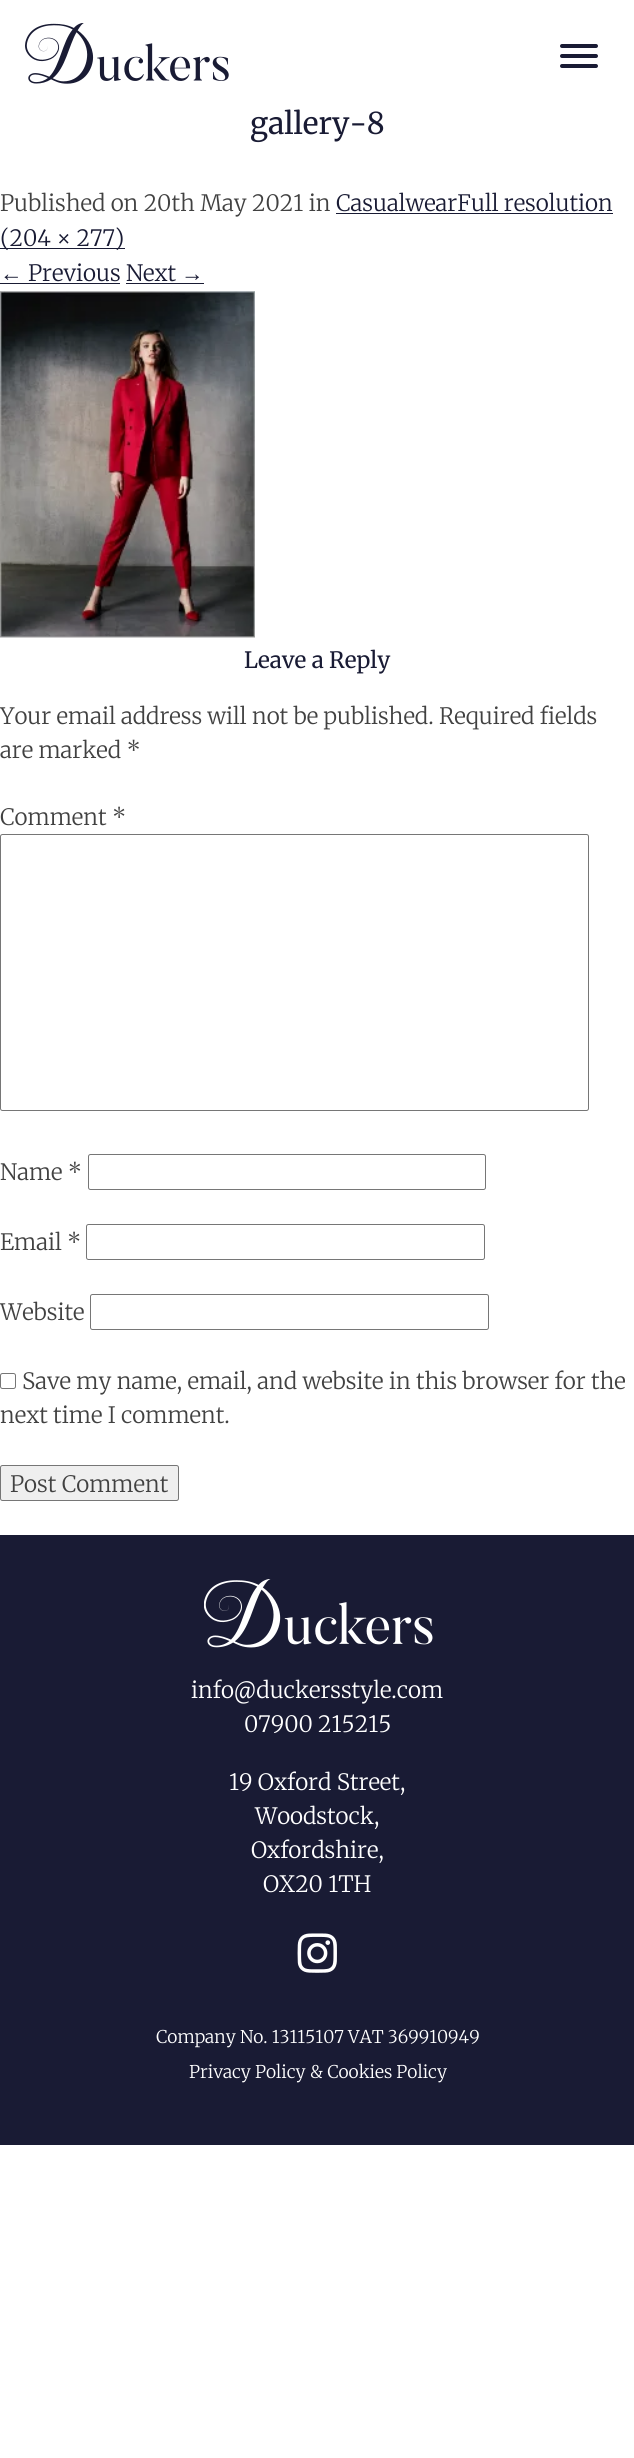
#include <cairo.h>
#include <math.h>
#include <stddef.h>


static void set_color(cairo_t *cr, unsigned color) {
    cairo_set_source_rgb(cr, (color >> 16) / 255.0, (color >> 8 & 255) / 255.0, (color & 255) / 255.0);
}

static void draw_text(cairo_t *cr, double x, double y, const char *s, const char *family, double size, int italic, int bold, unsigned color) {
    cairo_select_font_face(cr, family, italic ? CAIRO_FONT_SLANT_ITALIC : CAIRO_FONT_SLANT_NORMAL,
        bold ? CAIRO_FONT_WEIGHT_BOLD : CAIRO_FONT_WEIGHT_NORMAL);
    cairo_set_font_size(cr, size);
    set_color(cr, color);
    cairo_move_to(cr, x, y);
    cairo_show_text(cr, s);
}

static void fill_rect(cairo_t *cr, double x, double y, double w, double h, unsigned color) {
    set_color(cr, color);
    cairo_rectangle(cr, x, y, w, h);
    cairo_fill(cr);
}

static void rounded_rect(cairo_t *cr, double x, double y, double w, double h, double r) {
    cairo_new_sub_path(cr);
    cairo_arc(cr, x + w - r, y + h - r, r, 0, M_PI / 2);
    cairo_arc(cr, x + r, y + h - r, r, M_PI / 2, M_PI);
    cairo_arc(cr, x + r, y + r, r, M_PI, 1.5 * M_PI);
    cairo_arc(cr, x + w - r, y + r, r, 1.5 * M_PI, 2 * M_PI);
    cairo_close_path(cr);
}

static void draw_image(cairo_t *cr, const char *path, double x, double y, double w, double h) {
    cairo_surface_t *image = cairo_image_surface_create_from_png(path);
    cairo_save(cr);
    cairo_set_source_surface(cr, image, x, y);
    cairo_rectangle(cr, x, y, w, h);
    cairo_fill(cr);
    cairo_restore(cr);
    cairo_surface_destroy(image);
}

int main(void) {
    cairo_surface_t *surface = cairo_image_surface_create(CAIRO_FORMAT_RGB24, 634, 2458);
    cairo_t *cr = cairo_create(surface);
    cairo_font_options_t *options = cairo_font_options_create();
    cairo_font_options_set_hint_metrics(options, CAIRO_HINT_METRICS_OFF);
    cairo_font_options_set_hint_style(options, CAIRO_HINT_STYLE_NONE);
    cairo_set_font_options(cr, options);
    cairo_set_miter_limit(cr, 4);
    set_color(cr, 0xFFFFFF);
    cairo_paint(cr);
    draw_image(cr, "assets/img1.png", 25, 23, 204, 61);
    set_color(cr, 0x191B34);
    rounded_rect(cr, 560, 44, 38, 4, 2);
    cairo_fill(cr);
    rounded_rect(cr, 560, 54, 38, 4, 2);
    cairo_fill(cr);
    rounded_rect(cr, 560, 64, 38, 4, 2);
    cairo_fill(cr);
    draw_text(cr, 250, 134, "gallery-8", "Merriweather", 30, 0, 0, 0x191B34);
    draw_text(cr, 0, 211, "Published on 20th May 2021 in", "Merriweather Light", 22.5, 0, 0, 0x414141);
    draw_text(cr, 336, 211, "CasualwearFull resolution", "Merriweather Light", 22.5, 0, 0, 0x191B34);
    fill_rect(cr, 336, 213, 277, 1, 0x191B34);
    fill_rect(cr, 0, 248, 125, 1, 0x191B34);
    draw_text(cr, 0, 246, "(204 × 277)", "Merriweather Light", 22.5, 0, 0, 0x191B34);
    draw_text(cr, 0, 281, "←", "Liberation Serif", 22.5, 0, 0, 0x191B34);
    fill_rect(cr, 0, 283, 120, 1, 0x191B34);
    draw_text(cr, 28, 281, "Previous Next", "Merriweather Light", 22.5, 0, 0, 0x191B34);
    draw_text(cr, 181, 281, "→", "Liberation Serif", 22.5, 0, 0, 0x191B34);
    fill_rect(cr, 126, 283, 78, 1, 0x191B34);
    draw_image(cr, "assets/img2.png", 0, 291, 255, 347);
    draw_text(cr, 244, 668, "Leave a Reply", "Merriweather", 22.5, 0, 0, 0x191B34);
    draw_text(cr, 0, 724, "Your email address will not be published. Required fields", "Merriweather Light", 22.5, 0, 0, 0x414141);
    draw_text(cr, 0, 758, "are marked *", "Merriweather Light", 22.5, 0, 0, 0x414141);
    draw_text(cr, 0, 825, "Comment *", "Merriweather Light", 22.5, 0, 0, 0x414141);
    rounded_rect(cr, 0.5, 834.5, 588, 276, 2);
    set_color(cr, 0x767676);
    cairo_set_line_width(cr, 1);
    cairo_stroke(cr);
    draw_text(cr, 0, 1180, "Name *", "Merriweather Light", 22.5, 0, 0, 0x414141);
    rounded_rect(cr, 88.5, 1154.5, 397, 35, 2);
    set_color(cr, 0x767676);
    cairo_stroke(cr);
    draw_text(cr, 0, 1250, "Email *", "Merriweather Light", 22.5, 0, 0, 0x414141);
    rounded_rect(cr, 86.5, 1224.5, 398, 35, 2);
    set_color(cr, 0x767676);
    cairo_stroke(cr);
    draw_text(cr, 0, 1320, "Website", "Merriweather Light", 22.5, 0, 0, 0x414141);
    rounded_rect(cr, 90.5, 1294.5, 398, 35, 2);
    set_color(cr, 0x767676);
    cairo_stroke(cr);
    rounded_rect(cr, 0.5, 1373.5, 15, 15, 2);
    cairo_stroke(cr);
    draw_text(cr, 22, 1389, "Save my name, email, and website in this browser for the", "Merriweather Light", 22.5, 0, 0, 0x414141);
    draw_text(cr, 0, 1423, "next time I comment.", "Merriweather Light", 22.5, 0, 0, 0x414141);
    set_color(cr, 0xEFEFEF);
    rounded_rect(cr, 0.5, 1465.5, 178, 35, 2);
    cairo_fill_preserve(cr);
    set_color(cr, 0x767676);
    cairo_stroke(cr);
    draw_text(cr, 10, 1492, "Post Comment", "Merriweather Light", 22.5, 0, 0, 0x414141);
    fill_rect(cr, 0, 1535, 634, 610, 0x191B34);
    draw_image(cr, "assets/img3.png", 204, 1579, 229, 69);
    draw_text(cr, 191, 1698, "info@duckersstyle.com", "Merriweather Light", 22.5, 0, 0, 0xFFFFFF);
    draw_text(cr, 244, 1732, "07900 215215", "Merriweather Light", 22.5, 0, 0, 0xFFFFFF);
    draw_text(cr, 229, 1790, "19 Oxford Street,", "Merriweather Light", 22.5, 0, 0, 0xFFFFFF);
    draw_text(cr, 255, 1824, "Woodstock,", "Merriweather Light", 22.5, 0, 0, 0xFFFFFF);
    draw_text(cr, 251, 1858, "Oxfordshire,", "Merriweather Light", 22.5, 0, 0, 0xFFFFFF);
    draw_text(cr, 263, 1892, "OX20 1TH", "Merriweather Light", 22.5, 0, 0, 0xFFFFFF);
    draw_image(cr, "assets/img4.png", 297, 1933, 40, 40);
    draw_text(cr, 156, 2043, "Company No. 13115107 VAT 369910949", "Merriweather Light", 17.5, 0, 0, 0xFFFFFF);
    draw_text(cr, 189, 2078, "Privacy Policy & Cookies Policy", "Merriweather Light", 17.5, 0, 0, 0xFFFFFF);
    cairo_surface_write_to_png(surface, "output.png");
    cairo_font_options_destroy(options);
    cairo_destroy(cr);
    cairo_surface_destroy(surface);
    return 0;
}
